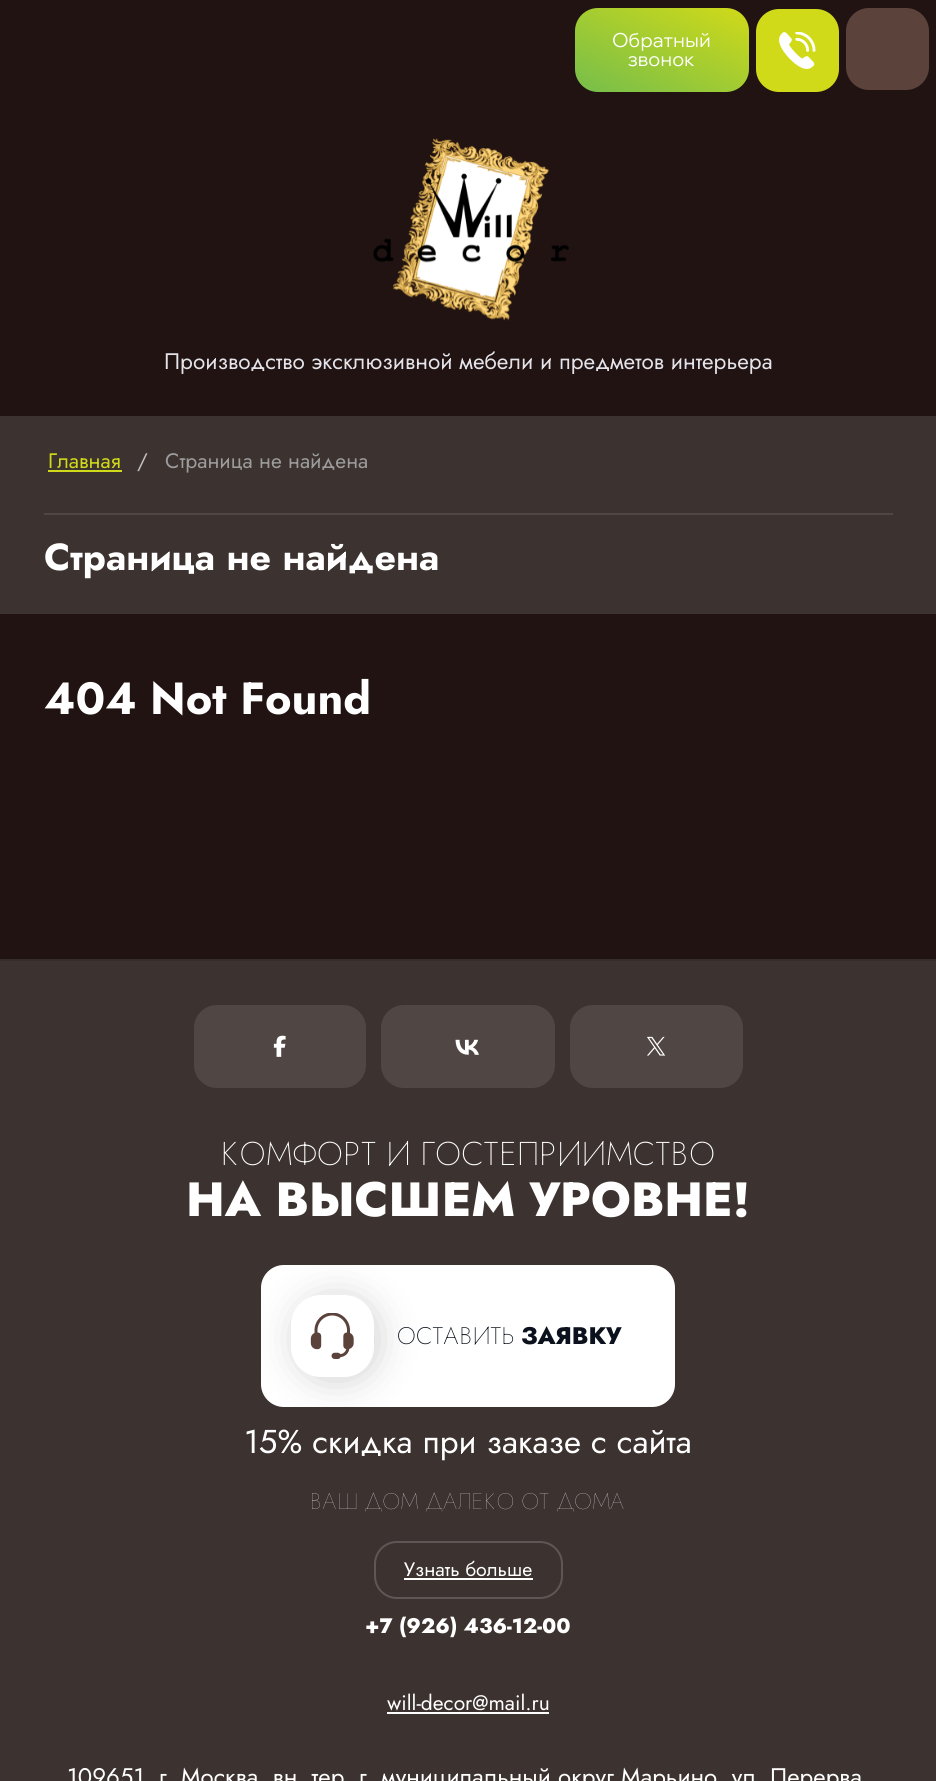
#include <cairo.h>
#include <math.h>
#include <stddef.h>


static void set_color(cairo_t *cr, unsigned color) {
    cairo_set_source_rgb(cr, (color >> 16) / 255.0, (color >> 8 & 255) / 255.0, (color & 255) / 255.0);
}

static void draw_text(cairo_t *cr, double x, double y, const char *s, const char *family, double size, int italic, int bold, unsigned color) {
    cairo_select_font_face(cr, family, italic ? CAIRO_FONT_SLANT_ITALIC : CAIRO_FONT_SLANT_NORMAL,
        bold ? CAIRO_FONT_WEIGHT_BOLD : CAIRO_FONT_WEIGHT_NORMAL);
    cairo_set_font_size(cr, size);
    set_color(cr, color);
    cairo_move_to(cr, x, y);
    cairo_show_text(cr, s);
}

static void fill_rect(cairo_t *cr, double x, double y, double w, double h, unsigned color) {
    set_color(cr, color);
    cairo_rectangle(cr, x, y, w, h);
    cairo_fill(cr);
}

static void rounded_rect(cairo_t *cr, double x, double y, double w, double h, double r) {
    cairo_new_sub_path(cr);
    cairo_arc(cr, x + w - r, y + h - r, r, 0, M_PI / 2);
    cairo_arc(cr, x + r, y + h - r, r, M_PI / 2, M_PI);
    cairo_arc(cr, x + r, y + r, r, M_PI, 1.5 * M_PI);
    cairo_arc(cr, x + w - r, y + r, r, 1.5 * M_PI, 2 * M_PI);
    cairo_close_path(cr);
}

static void draw_shadow(cairo_t *cr, double x, double y, double w, double h, double r, double blur, double alpha) {
    cairo_push_group_with_content(cr, CAIRO_CONTENT_ALPHA);
    cairo_set_operator(cr, CAIRO_OPERATOR_SOURCE);
    for (int i = 15; i >= -15 && fmin(w, h) + blur * i / 3 > 0; i -= 2) {
        double e = blur * i / 6;
        cairo_set_source_rgba(cr, 0, 0, 0, alpha * erfc((i - 1) / 8.5) / 2);
        rounded_rect(cr, x - e, y - e, w + 2 * e, h + 2 * e, fmax(0, fmin(r + e + blur * .6, fmin(w, h) / 2 + e)));
        cairo_fill(cr);
    }
    cairo_pattern_t *soft = cairo_pop_group(cr);
    cairo_mask(cr, soft);
    cairo_pattern_destroy(soft);
}

static void draw_image(cairo_t *cr, const char *path, double x, double y, double w, double h) {
    cairo_surface_t *image = cairo_image_surface_create_from_png(path);
    cairo_save(cr);
    cairo_set_source_surface(cr, image, x, y);
    cairo_rectangle(cr, x, y, w, h);
    cairo_fill(cr);
    cairo_restore(cr);
    cairo_surface_destroy(image);
}

int main(void) {
    cairo_surface_t *surface = cairo_image_surface_create(CAIRO_FORMAT_RGB24, 936, 1781);
    cairo_t *cr = cairo_create(surface);
    cairo_font_options_t *options = cairo_font_options_create();
    cairo_font_options_set_hint_metrics(options, CAIRO_HINT_METRICS_OFF);
    cairo_font_options_set_hint_style(options, CAIRO_HINT_STYLE_NONE);
    cairo_set_font_options(cr, options);
    cairo_set_miter_limit(cr, 4);
    cairo_pattern_t *gradient;
    set_color(cr, 0x211312);
    cairo_paint(cr);
    gradient = cairo_pattern_create_linear(629, 118, 694, -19);
    cairo_pattern_add_color_stop_rgba(gradient, 0, 0.459, 0.745, 0.294, 1);
    cairo_pattern_add_color_stop_rgba(gradient, 1, 0.82, 0.855, 0.094, 1);
    cairo_set_source(cr, gradient);
    cairo_pattern_destroy(gradient);
    rounded_rect(cr, 575, 8, 174, 84, 23);
    cairo_fill(cr);
    draw_text(cr, 612, 47, "Обратный", "Wix Madefor Display", 19.5, 0, 0, 0xFFFFFF);
    draw_text(cr, 628, 66, "звонок", "Wix Madefor Display", 19.5, 0, 0, 0xFFFFFF);
    set_color(cr, 0xD1DA18);
    rounded_rect(cr, 756, 9, 83, 83, 23);
    cairo_fill(cr);
    draw_image(cr, "assets/img1.png", 779, 32, 37, 37);
    set_color(cr, 0x5B423B);
    rounded_rect(cr, 846, 8, 83, 82, 23);
    cairo_fill(cr);
    draw_image(cr, "assets/img2.png", 373, 138, 196, 183);
    draw_text(cr, 164, 369, "Производство эксклюзивной мебели и предметов интерьера", "Jost", 22.5, 0, 0, 0xE3E3E9);
    fill_rect(cr, 0, 416, 936, 198, 0x3C3230);
    fill_rect(cr, 44, 513, 849, 2, 0x504745);
    draw_text(cr, 48, 468, "Главная", "Jost", 21, 0, 0, 0xD1DA18);
    fill_rect(cr, 48, 470, 74, 2, 0xD1DA18);
    draw_text(cr, 137, 468, "/", "Jost", 21, 0, 0, 0xC0C0C0);
    draw_text(cr, 165, 468, "Страница не найдена", "Jost", 21, 0, 0, 0x9C9C9C);
    draw_text(cr, 44, 570, "Страница не найдена", "Jost", 37.5, 0, 1, 0xFFFFFF);
    draw_text(cr, 44, 714, "404 Not Found", "Jost", 45, 0, 1, 0xFFFFFF);
    fill_rect(cr, 0, 961, 936, 820, 0x3C3230);
    fill_rect(cr, 0, 959, 936, 2, 0x362D2B);
    set_color(cr, 0x504745);
    rounded_rect(cr, 194, 1005, 172, 83, 23);
    cairo_fill(cr);
    draw_image(cr, "assets/img3.png", 273, 1035, 13, 22);
    rounded_rect(cr, 381, 1005, 174, 83, 23);
    cairo_fill(cr);
    draw_image(cr, "assets/img4.png", 455, 1039, 24, 16);
    rounded_rect(cr, 570, 1005, 173, 83, 23);
    cairo_fill(cr);
    draw_image(cr, "assets/img5.png", 647, 1036, 19, 20);
    draw_text(cr, 221, 1165, "КОМФОРТ И ГОСТЕПРИИМСТВО", "Jost ExtraLight", 33, 0, 0, 0xFFFFFF);
    draw_text(cr, 186, 1216, "НА ВЫСШЕМ УРОВНЕ!", "Jost ExtraBold", 48, 0, 0, 0xFFFFFF);
    rounded_rect(cr, 261, 1265, 414, 142, 23);
    cairo_fill(cr);
    rounded_rect(cr, 262, 1266, 412, 140, 22);
    cairo_set_source_rgba(cr, 1, 1, 1, 0.18);
    cairo_stroke(cr);
    set_color(cr, 0x000000);
    draw_shadow(cr, 296, 1298, 82, 82, 30, 19, 0.18);
    set_color(cr, 0xFFFFFF);
    rounded_rect(cr, 291, 1295, 83, 82, 30);
    cairo_fill(cr);
    draw_image(cr, "assets/img6.png", 310, 1313, 44, 46);
    draw_text(cr, 397, 1344, "ОСТАВИТЬ", "Jost ExtraLight", 24, 0, 0, 0x0C121D);
    draw_text(cr, 521, 1344, "ЗАЯВКУ", "Jost ExtraBold", 24, 0, 0, 0x0C121D);
    draw_text(cr, 244, 1453, "15% скидка при заказе с сайта", "Jost", 33, 0, 0, 0xFFFFFF);
    draw_text(cr, 310, 1509, "ВАШ ДОМ ДАЛЕКО ОТ ДОМА", "Jost Thin", 22.5, 0, 0, 0xFFFFFF);
    rounded_rect(cr, 375, 1542, 187, 56, 22);
    set_color(cr, 0x5F5755);
    cairo_stroke(cr);
    draw_text(cr, 404, 1576, "Узнать больше", "Jost", 19.5, 0, 0, 0xFFFFFF);
    fill_rect(cr, 404, 1578, 129, 2, 0xFFFFFF);
    draw_text(cr, 365, 1633, "+7 (926) 436-12-00", "Jost ExtraBold", 21, 0, 0, 0xFFFFFF);
    draw_text(cr, 387, 1710, "will-decor@mail.ru", "Jost", 21, 0, 0, 0xFFFFFF);
    fill_rect(cr, 387, 1712, 162, 2, 0xFFFFFF);
    draw_text(cr, 67, 1785, "109651, г. Москва, вн. тер. г. муниципальный округ Марьино, ул. Перерва", "Jost", 24, 0, 0, 0xFFFFFF);
    cairo_surface_write_to_png(surface, "output.png");
    cairo_font_options_destroy(options);
    cairo_destroy(cr);
    cairo_surface_destroy(surface);
    return 0;
}
